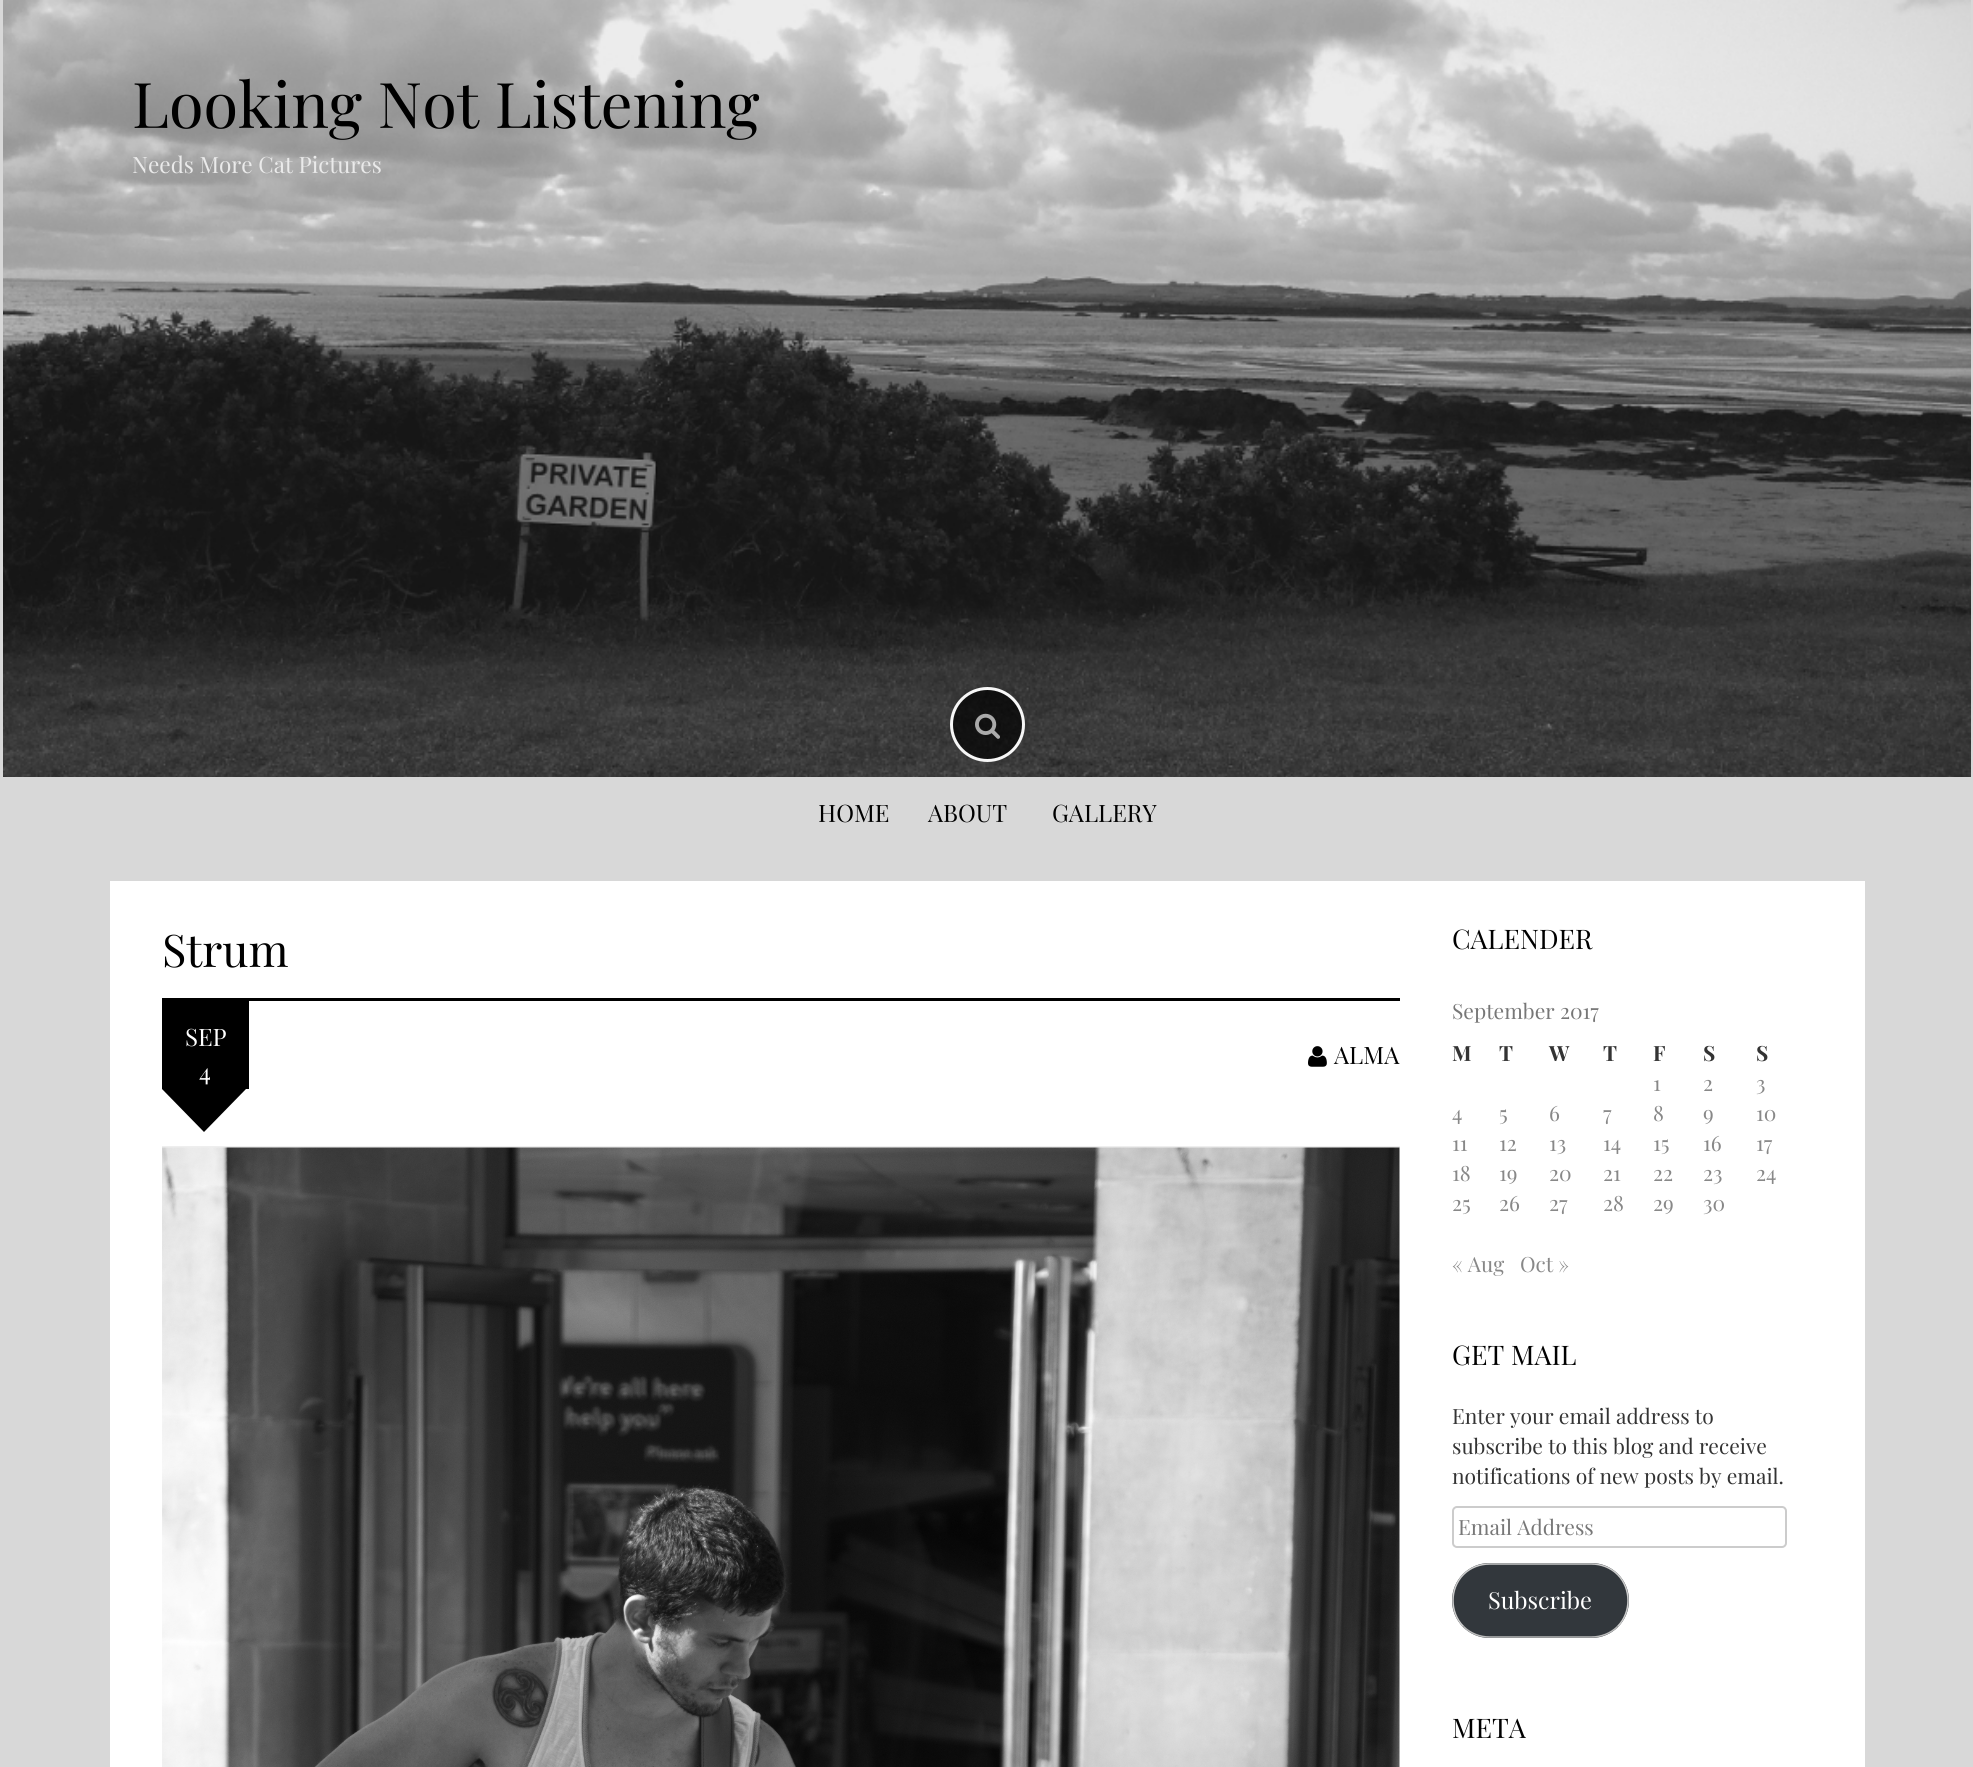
#include <cairo.h>
#include <math.h>
#include <stddef.h>


static void set_color(cairo_t *cr, unsigned color) {
    cairo_set_source_rgb(cr, (color >> 16) / 255.0, (color >> 8 & 255) / 255.0, (color & 255) / 255.0);
}

static void draw_text(cairo_t *cr, double x, double y, const char *s, const char *family, double size, int italic, int bold, unsigned color) {
    cairo_select_font_face(cr, family, italic ? CAIRO_FONT_SLANT_ITALIC : CAIRO_FONT_SLANT_NORMAL,
        bold ? CAIRO_FONT_WEIGHT_BOLD : CAIRO_FONT_WEIGHT_NORMAL);
    cairo_set_font_size(cr, size);
    set_color(cr, color);
    cairo_move_to(cr, x, y);
    cairo_show_text(cr, s);
}

static void fill_rect(cairo_t *cr, double x, double y, double w, double h, unsigned color) {
    set_color(cr, color);
    cairo_rectangle(cr, x, y, w, h);
    cairo_fill(cr);
}

static void rounded_rect(cairo_t *cr, double x, double y, double w, double h, double r) {
    cairo_new_sub_path(cr);
    cairo_arc(cr, x + w - r, y + h - r, r, 0, M_PI / 2);
    cairo_arc(cr, x + r, y + h - r, r, M_PI / 2, M_PI);
    cairo_arc(cr, x + r, y + r, r, M_PI, 1.5 * M_PI);
    cairo_arc(cr, x + w - r, y + r, r, 1.5 * M_PI, 2 * M_PI);
    cairo_close_path(cr);
}

static void draw_image(cairo_t *cr, const char *path, double x, double y, double w, double h) {
    cairo_surface_t *image = cairo_image_surface_create_from_png(path);
    cairo_save(cr);
    cairo_set_source_surface(cr, image, x, y);
    cairo_rectangle(cr, x, y, w, h);
    cairo_fill(cr);
    cairo_restore(cr);
    cairo_surface_destroy(image);
}

int main(void) {
    cairo_surface_t *surface = cairo_image_surface_create(CAIRO_FORMAT_RGB24, 1973, 1767);
    cairo_t *cr = cairo_create(surface);
    cairo_font_options_t *options = cairo_font_options_create();
    cairo_font_options_set_hint_metrics(options, CAIRO_HINT_METRICS_OFF);
    cairo_font_options_set_hint_style(options, CAIRO_HINT_STYLE_NONE);
    cairo_set_font_options(cr, options);
    cairo_set_miter_limit(cr, 4);
    set_color(cr, 0xD8D8D8);
    cairo_paint(cr);
    draw_image(cr, "assets/img1.png", 3, 0, 1968, 777);
    draw_text(cr, 132, 128, "Looking Not Listening", "Playfair Display", 63, 0, 0, 0x000000);
    draw_text(cr, 132, 173, "Needs More Cat Pictures", "Playfair Display", 22.5, 0, 0, 0xEAEAEA);
    cairo_set_source_rgba(cr, 0, 0, 0, 0.7);
    cairo_new_path(cr);
    cairo_arc(cr, 987.5, 724.5, 36, 0, 2 * M_PI);
    cairo_fill_preserve(cr);
    set_color(cr, 0xF7F7F7);
    cairo_set_line_width(cr, 3);
    cairo_stroke(cr);
    draw_image(cr, "assets/img2.png", 975, 713, 25, 26);
    draw_text(cr, 818, 822, "HOME", "Playfair Display", 24, 0, 0, 0x000000);
    draw_text(cr, 928, 822, "ABOUT", "Playfair Display", 24, 0, 0, 0x000000);
    draw_text(cr, 1052, 822, "GALLERY", "Playfair Display", 24, 0, 0, 0x000000);
    fill_rect(cr, 110, 881, 1755, 886, 0xFFFFFF);
    draw_text(cr, 162, 967, "Strum", "Playfair Display", 45, 0, 0, 0x000000);
    fill_rect(cr, 162, 998, 1238, 3, 0x000000);
    fill_rect(cr, 162, 1146, 1238, 2, 0xEEEEEE);
    fill_rect(cr, 162, 1001, 87, 88, 0x000000);
    draw_text(cr, 185, 1046, "SEP", "Playfair Display", 24, 0, 0, 0xFFFFFF);
    draw_text(cr, 199, 1081, "4", "Playfair Display", 24, 0, 0, 0xFFFFFF);
    set_color(cr, 0x000000);
    cairo_new_path(cr);
    cairo_move_to(cr, 246, 1089);
    cairo_line_to(cr, 204, 1132);
    cairo_line_to(cr, 204, 1085);
    cairo_close_path(cr);
    cairo_fill(cr);
    cairo_new_path(cr);
    cairo_move_to(cr, 204, 1132);
    cairo_line_to(cr, 162, 1089);
    cairo_line_to(cr, 204, 1085);
    cairo_close_path(cr);
    cairo_fill(cr);
    draw_image(cr, "assets/img3.png", 1308, 1046, 19, 21);
    draw_text(cr, 1334, 1064, "ALMA", "Playfair Display", 24, 0, 0, 0x000000);
    draw_image(cr, "assets/img4.png", 162, 1147, 1238, 620);
    draw_text(cr, 1452, 949, "CALENDER", "Playfair Display", 27, 0, 0, 0x000000);
    draw_text(cr, 1452, 1019, "September 2017", "Playfair Display", 21, 0, 0, 0x777777);
    draw_text(cr, 1452, 1061, "M", "Playfair Display", 21, 0, 1, 0x333333);
    draw_text(cr, 1499, 1061, "T", "Playfair Display", 21, 0, 1, 0x333333);
    draw_text(cr, 1549, 1061, "W", "Playfair Display", 21, 0, 1, 0x333333);
    draw_text(cr, 1603, 1061, "T", "Playfair Display", 21, 0, 1, 0x333333);
    draw_text(cr, 1653, 1061, "F", "Playfair Display", 21, 0, 1, 0x333333);
    draw_text(cr, 1703, 1061, "S", "Playfair Display", 21, 0, 1, 0x333333);
    draw_text(cr, 1756, 1061, "S", "Playfair Display", 21, 0, 1, 0x333333);
    draw_text(cr, 1653, 1091, "1", "Playfair Display", 21, 0, 0, 0x888888);
    draw_text(cr, 1703, 1091, "2", "Playfair Display", 21, 0, 0, 0x888888);
    draw_text(cr, 1756, 1091, "3", "Playfair Display", 21, 0, 0, 0x888888);
    draw_text(cr, 1452, 1121, "4", "Playfair Display", 21, 0, 0, 0x888888);
    draw_text(cr, 1499, 1121, "5", "Playfair Display", 21, 0, 0, 0x888888);
    draw_text(cr, 1549, 1121, "6", "Playfair Display", 21, 0, 0, 0x888888);
    draw_text(cr, 1603, 1121, "7", "Playfair Display", 21, 0, 0, 0x888888);
    draw_text(cr, 1653, 1121, "8", "Playfair Display", 21, 0, 0, 0x888888);
    draw_text(cr, 1703, 1121, "9", "Playfair Display", 21, 0, 0, 0x888888);
    draw_text(cr, 1756, 1121, "10", "Playfair Display", 21, 0, 0, 0x888888);
    draw_text(cr, 1452, 1151, "11", "Playfair Display", 21, 0, 0, 0x888888);
    draw_text(cr, 1499, 1151, "12", "Playfair Display", 21, 0, 0, 0x888888);
    draw_text(cr, 1549, 1151, "13", "Playfair Display", 21, 0, 0, 0x888888);
    draw_text(cr, 1603, 1151, "14", "Playfair Display", 21, 0, 0, 0x888888);
    draw_text(cr, 1653, 1151, "15", "Playfair Display", 21, 0, 0, 0x888888);
    draw_text(cr, 1703, 1151, "16", "Playfair Display", 21, 0, 0, 0x888888);
    draw_text(cr, 1756, 1151, "17", "Playfair Display", 21, 0, 0, 0x888888);
    draw_text(cr, 1452, 1181, "18", "Playfair Display", 21, 0, 0, 0x888888);
    draw_text(cr, 1499, 1181, "19", "Playfair Display", 21, 0, 0, 0x888888);
    draw_text(cr, 1549, 1181, "20", "Playfair Display", 21, 0, 0, 0x888888);
    draw_text(cr, 1603, 1181, "21", "Playfair Display", 21, 0, 0, 0x888888);
    draw_text(cr, 1653, 1181, "22", "Playfair Display", 21, 0, 0, 0x888888);
    draw_text(cr, 1703, 1181, "23", "Playfair Display", 21, 0, 0, 0x888888);
    draw_text(cr, 1756, 1181, "24", "Playfair Display", 21, 0, 0, 0x888888);
    draw_text(cr, 1452, 1211, "25", "Playfair Display", 21, 0, 0, 0x888888);
    draw_text(cr, 1499, 1211, "26", "Playfair Display", 21, 0, 0, 0x888888);
    draw_text(cr, 1549, 1211, "27", "Playfair Display", 21, 0, 0, 0x888888);
    draw_text(cr, 1603, 1211, "28", "Playfair Display", 21, 0, 0, 0x888888);
    draw_text(cr, 1653, 1211, "29", "Playfair Display", 21, 0, 0, 0x888888);
    draw_text(cr, 1703, 1211, "30", "Playfair Display", 21, 0, 0, 0x888888);
    draw_text(cr, 1452, 1272, "« Aug", "Playfair Display", 21, 0, 0, 0x888888);
    draw_text(cr, 1520, 1272, "Oct »", "Playfair Display", 21, 0, 0, 0x888888);
    draw_text(cr, 1452, 1365, "GET MAIL", "Playfair Display", 27, 0, 0, 0x000000);
    draw_text(cr, 1452, 1424, "Enter your email address to", "Playfair Display", 21, 0, 0, 0x333333);
    draw_text(cr, 1452, 1454, "subscribe to this blog and receive", "Playfair Display", 21, 0, 0, 0x333333);
    draw_text(cr, 1452, 1484, "notifications of new posts by email.", "Playfair Display", 21, 0, 0, 0x333333);
    rounded_rect(cr, 1453, 1507, 333, 40, 4);
    set_color(cr, 0xCCCCCC);
    cairo_set_line_width(cr, 2);
    cairo_stroke(cr);
    draw_text(cr, 1458, 1535, "Email Address", "Playfair Display", 21, 0, 0, 0x777777);
    set_color(cr, 0x32373C);
    rounded_rect(cr, 1452, 1563, 177, 75, 37.5);
    cairo_fill(cr);
    cairo_new_path(cr);
    cairo_move_to(cr, 1617.5, 1626.5);
    cairo_curve_to(cr, 1610.5, 1633.5, 1601, 1637, 1591.5, 1637);
    cairo_line_to(cr, 1489.5, 1637);
    cairo_curve_to(cr, 1480, 1637, 1470.5, 1633.5, 1463.5, 1626.5);
    set_color(cr, 0xBBBBBB);
    cairo_set_line_width(cr, 1.5);
    cairo_stroke(cr);
    cairo_new_path(cr);
    cairo_move_to(cr, 1463.5, 1626.5);
    cairo_curve_to(cr, 1456.5, 1619.5, 1453, 1610, 1453, 1600.5);
    cairo_curve_to(cr, 1453, 1591, 1456.5, 1581.5, 1463.5, 1574.5);
    cairo_curve_to(cr, 1470.5, 1567.5, 1480, 1564, 1489.5, 1564);
    cairo_line_to(cr, 1591.5, 1564);
    cairo_curve_to(cr, 1601, 1564, 1610.5, 1567.5, 1617.5, 1574.5);
    cairo_curve_to(cr, 1624.5, 1581.5, 1628, 1591, 1628, 1600.5);
    cairo_curve_to(cr, 1628, 1610, 1624.5, 1619.5, 1617.5, 1626.5);
    set_color(cr, 0xCCCCCC);
    cairo_stroke(cr);
    draw_text(cr, 1488, 1609, "Subscribe", "Playfair Display", 23.5, 0, 0, 0xFFFFFF);
    draw_text(cr, 1452, 1738, "META", "Playfair Display", 27, 0, 0, 0x000000);
    cairo_surface_write_to_png(surface, "output.png");
    cairo_font_options_destroy(options);
    cairo_destroy(cr);
    cairo_surface_destroy(surface);
    return 0;
}
